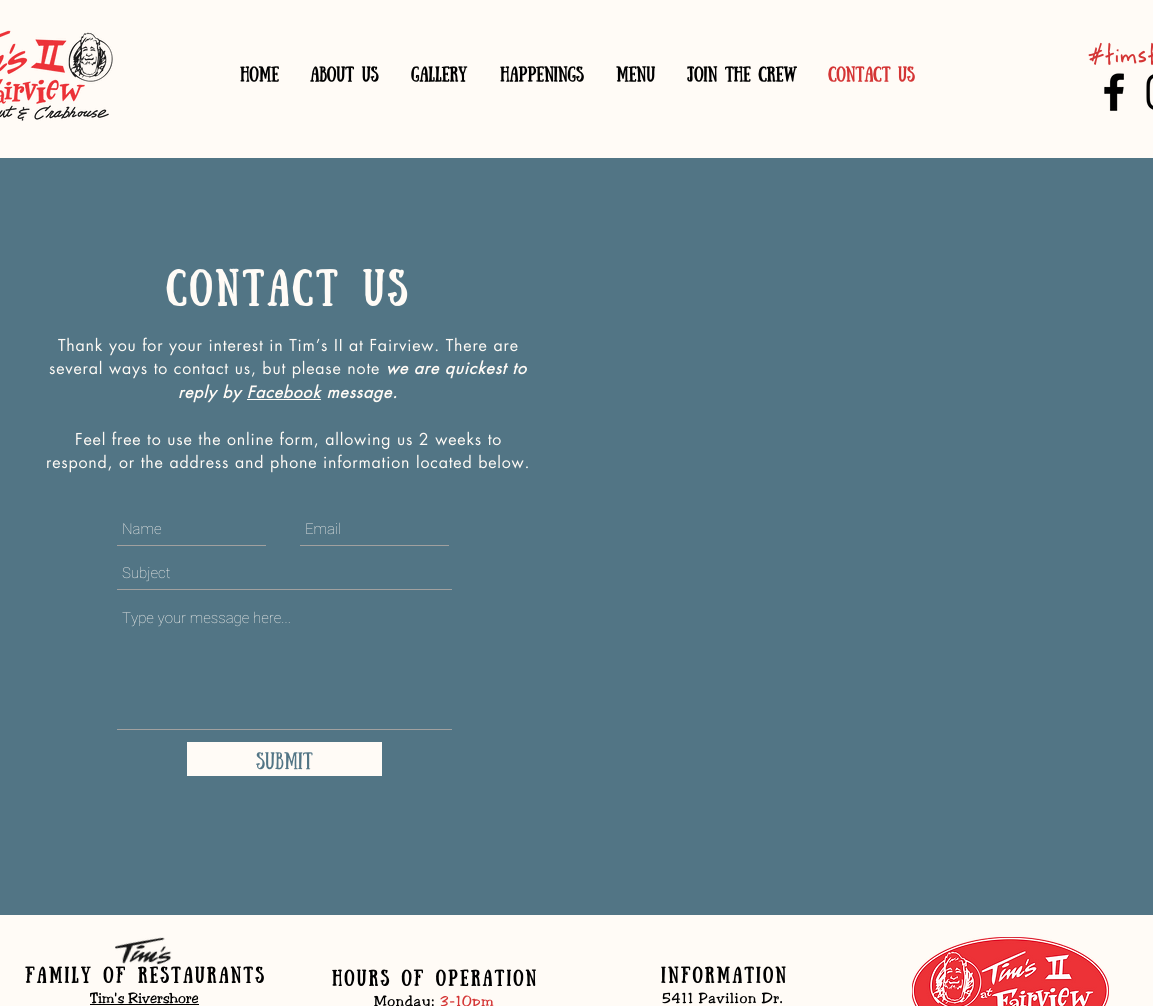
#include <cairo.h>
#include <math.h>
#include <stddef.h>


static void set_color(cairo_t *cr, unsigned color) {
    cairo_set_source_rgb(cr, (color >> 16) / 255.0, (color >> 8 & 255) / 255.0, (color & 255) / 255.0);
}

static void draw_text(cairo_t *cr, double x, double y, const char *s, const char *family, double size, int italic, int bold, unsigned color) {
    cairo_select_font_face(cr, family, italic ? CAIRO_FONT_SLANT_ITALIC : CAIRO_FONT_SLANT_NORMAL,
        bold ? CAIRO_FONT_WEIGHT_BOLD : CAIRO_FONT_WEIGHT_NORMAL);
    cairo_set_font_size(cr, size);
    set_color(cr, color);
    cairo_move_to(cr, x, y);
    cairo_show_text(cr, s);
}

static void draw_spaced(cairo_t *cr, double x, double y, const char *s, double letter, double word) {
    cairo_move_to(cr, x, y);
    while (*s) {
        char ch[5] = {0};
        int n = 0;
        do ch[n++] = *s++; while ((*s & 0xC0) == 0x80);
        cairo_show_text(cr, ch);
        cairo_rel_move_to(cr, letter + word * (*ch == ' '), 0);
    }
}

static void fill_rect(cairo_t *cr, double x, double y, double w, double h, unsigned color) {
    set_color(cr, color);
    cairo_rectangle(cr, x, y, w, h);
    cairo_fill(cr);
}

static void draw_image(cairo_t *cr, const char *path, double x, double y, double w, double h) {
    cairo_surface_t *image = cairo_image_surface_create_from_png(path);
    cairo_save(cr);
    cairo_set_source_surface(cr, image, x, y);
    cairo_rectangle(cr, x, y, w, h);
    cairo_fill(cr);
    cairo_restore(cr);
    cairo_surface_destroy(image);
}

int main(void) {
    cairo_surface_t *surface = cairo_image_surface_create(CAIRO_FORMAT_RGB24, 1153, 1006);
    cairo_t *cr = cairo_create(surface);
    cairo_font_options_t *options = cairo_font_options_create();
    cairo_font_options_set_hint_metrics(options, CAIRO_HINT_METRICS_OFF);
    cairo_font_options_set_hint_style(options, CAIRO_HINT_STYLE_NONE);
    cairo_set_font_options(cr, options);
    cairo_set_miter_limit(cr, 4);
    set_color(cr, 0xFFFBF6);
    cairo_paint(cr);
    draw_image(cr, "assets/img1.png", 0, 30, 113, 91);
    cairo_select_font_face(cr, "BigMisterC", CAIRO_FONT_SLANT_NORMAL, CAIRO_FONT_WEIGHT_BOLD);
    cairo_set_font_size(cr, 30);
    set_color(cr, 0xD43535);
    draw_spaced(cr, 1088, 63, "#timst", 1.5, 0);
    draw_text(cr, 240, 78, "HOME", "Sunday", 15, 0, 1, 0x000000);
    draw_text(cr, 310, 78, "ABOUT US", "Sunday", 15, 0, 1, 0x000000);
    draw_text(cr, 411, 78, "GALLERY", "Sunday", 15, 0, 1, 0x000000);
    draw_text(cr, 500, 78, "HAPPENINGS", "Sunday", 15, 0, 1, 0x000000);
    draw_text(cr, 616, 78, "MENU", "Sunday", 15, 0, 1, 0x000000);
    draw_text(cr, 687, 78, "JOIN THE CREW", "Sunday", 15, 0, 1, 0x000000);
    draw_text(cr, 828, 78, "CONTACT US", "Sunday", 15, 0, 1, 0xD43535);
    draw_image(cr, "assets/img2.png", 1104, 73, 20, 38);
    draw_image(cr, "assets/img3.png", 1146, 74, 7, 36);
    fill_rect(cr, 0, 158, 1153, 757, 0x527585);
    cairo_set_font_size(cr, 36);
    set_color(cr, 0xFFFBF6);
    draw_spaced(cr, 166, 297, "CONTAct us", 3.6, 0);
    cairo_select_font_face(cr, "futura", CAIRO_FONT_SLANT_NORMAL, CAIRO_FONT_WEIGHT_NORMAL);
    cairo_set_font_size(cr, 16);
    draw_spaced(cr, 58, 351, "Thank you for your interest in Tim’s II at Fairview. There are", 0.8, 0);
    draw_spaced(cr, 49, 374, "several ways to contact us, but please note", 0.8, 0);
    cairo_select_font_face(cr, "futura", CAIRO_FONT_SLANT_ITALIC, CAIRO_FONT_WEIGHT_BOLD);
    draw_spaced(cr, 386, 374, "we are quickest to", 0.8, 0);
    draw_spaced(cr, 178, 398, "reply by Facebook message.", 0.8, 0);
    fill_rect(cr, 247, 399, 74, 1, 0xFFFBF6);
    cairo_select_font_face(cr, "futura", CAIRO_FONT_SLANT_NORMAL, CAIRO_FONT_WEIGHT_NORMAL);
    draw_spaced(cr, 75, 445, "Feel free to use the online form, allowing us 2 weeks to", 0.8, 0);
    draw_spaced(cr, 46, 468, "respond, or the address and phone information located below.", 0.8, 0);
    fill_rect(cr, 117, 545, 149, 1, 0xA0A09F);
    draw_text(cr, 122, 534, "Name", "Roboto Thin", 15, 0, 0, 0xFFFBF6);
    fill_rect(cr, 300, 545, 149, 1, 0xA0A09F);
    draw_text(cr, 305, 534, "Email", "Roboto Thin", 15, 0, 0, 0xFFFBF6);
    fill_rect(cr, 117, 589, 335, 1, 0xA0A09F);
    draw_text(cr, 122, 578, "Subject", "Roboto Thin", 15, 0, 0, 0xFFFBF6);
    fill_rect(cr, 117, 729, 335, 1, 0xA0A09F);
    draw_text(cr, 122, 623, "Type your message here...", "Roboto Thin", 15, 0, 0, 0xFFFBF6);
    fill_rect(cr, 187, 742, 195, 34, 0xFFFBF6);
    draw_text(cr, 256, 765, "Submit", "Sunday", 17, 0, 0, 0x527585);
    draw_image(cr, "assets/img4.png", 115, 937, 57, 28);
    cairo_select_font_face(cr, "Sunday", CAIRO_FONT_SLANT_NORMAL, CAIRO_FONT_WEIGHT_BOLD);
    cairo_set_font_size(cr, 16);
    set_color(cr, 0x000000);
    draw_spaced(cr, 25, 979, "Family of Restaurants", 2.4, 0);
    draw_text(cr, 90, 1003, "Tim's Rivershore", "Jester", 15, 0, 0, 0x000000);
    fill_rect(cr, 90, 1004, 109, 1, 0x000000);
    cairo_select_font_face(cr, "Sunday", CAIRO_FONT_SLANT_NORMAL, CAIRO_FONT_WEIGHT_BOLD);
    cairo_set_font_size(cr, 16);
    draw_spaced(cr, 332, 982, "Hours of operation", 2.4, 0);
    cairo_select_font_face(cr, "Jester", CAIRO_FONT_SLANT_NORMAL, CAIRO_FONT_WEIGHT_NORMAL);
    cairo_set_font_size(cr, 15);
    draw_spaced(cr, 374, 1006, "Monday:", 0.75, 0);
    set_color(cr, 0xD43535);
    draw_spaced(cr, 440, 1006, "3-10pm", 0.75, 0);
    cairo_select_font_face(cr, "Sunday", CAIRO_FONT_SLANT_NORMAL, CAIRO_FONT_WEIGHT_BOLD);
    cairo_set_font_size(cr, 16);
    set_color(cr, 0x000000);
    draw_spaced(cr, 661, 979, "Information", 2.4, 0);
    cairo_select_font_face(cr, "Jester", CAIRO_FONT_SLANT_NORMAL, CAIRO_FONT_WEIGHT_NORMAL);
    cairo_set_font_size(cr, 15);
    draw_spaced(cr, 662, 1003, "5411 Pavilion Dr.", 0.75, 0);
    draw_image(cr, "assets/img5.png", 912, 937, 197, 69);
    cairo_surface_write_to_png(surface, "output.png");
    cairo_font_options_destroy(options);
    cairo_destroy(cr);
    cairo_surface_destroy(surface);
    return 0;
}
